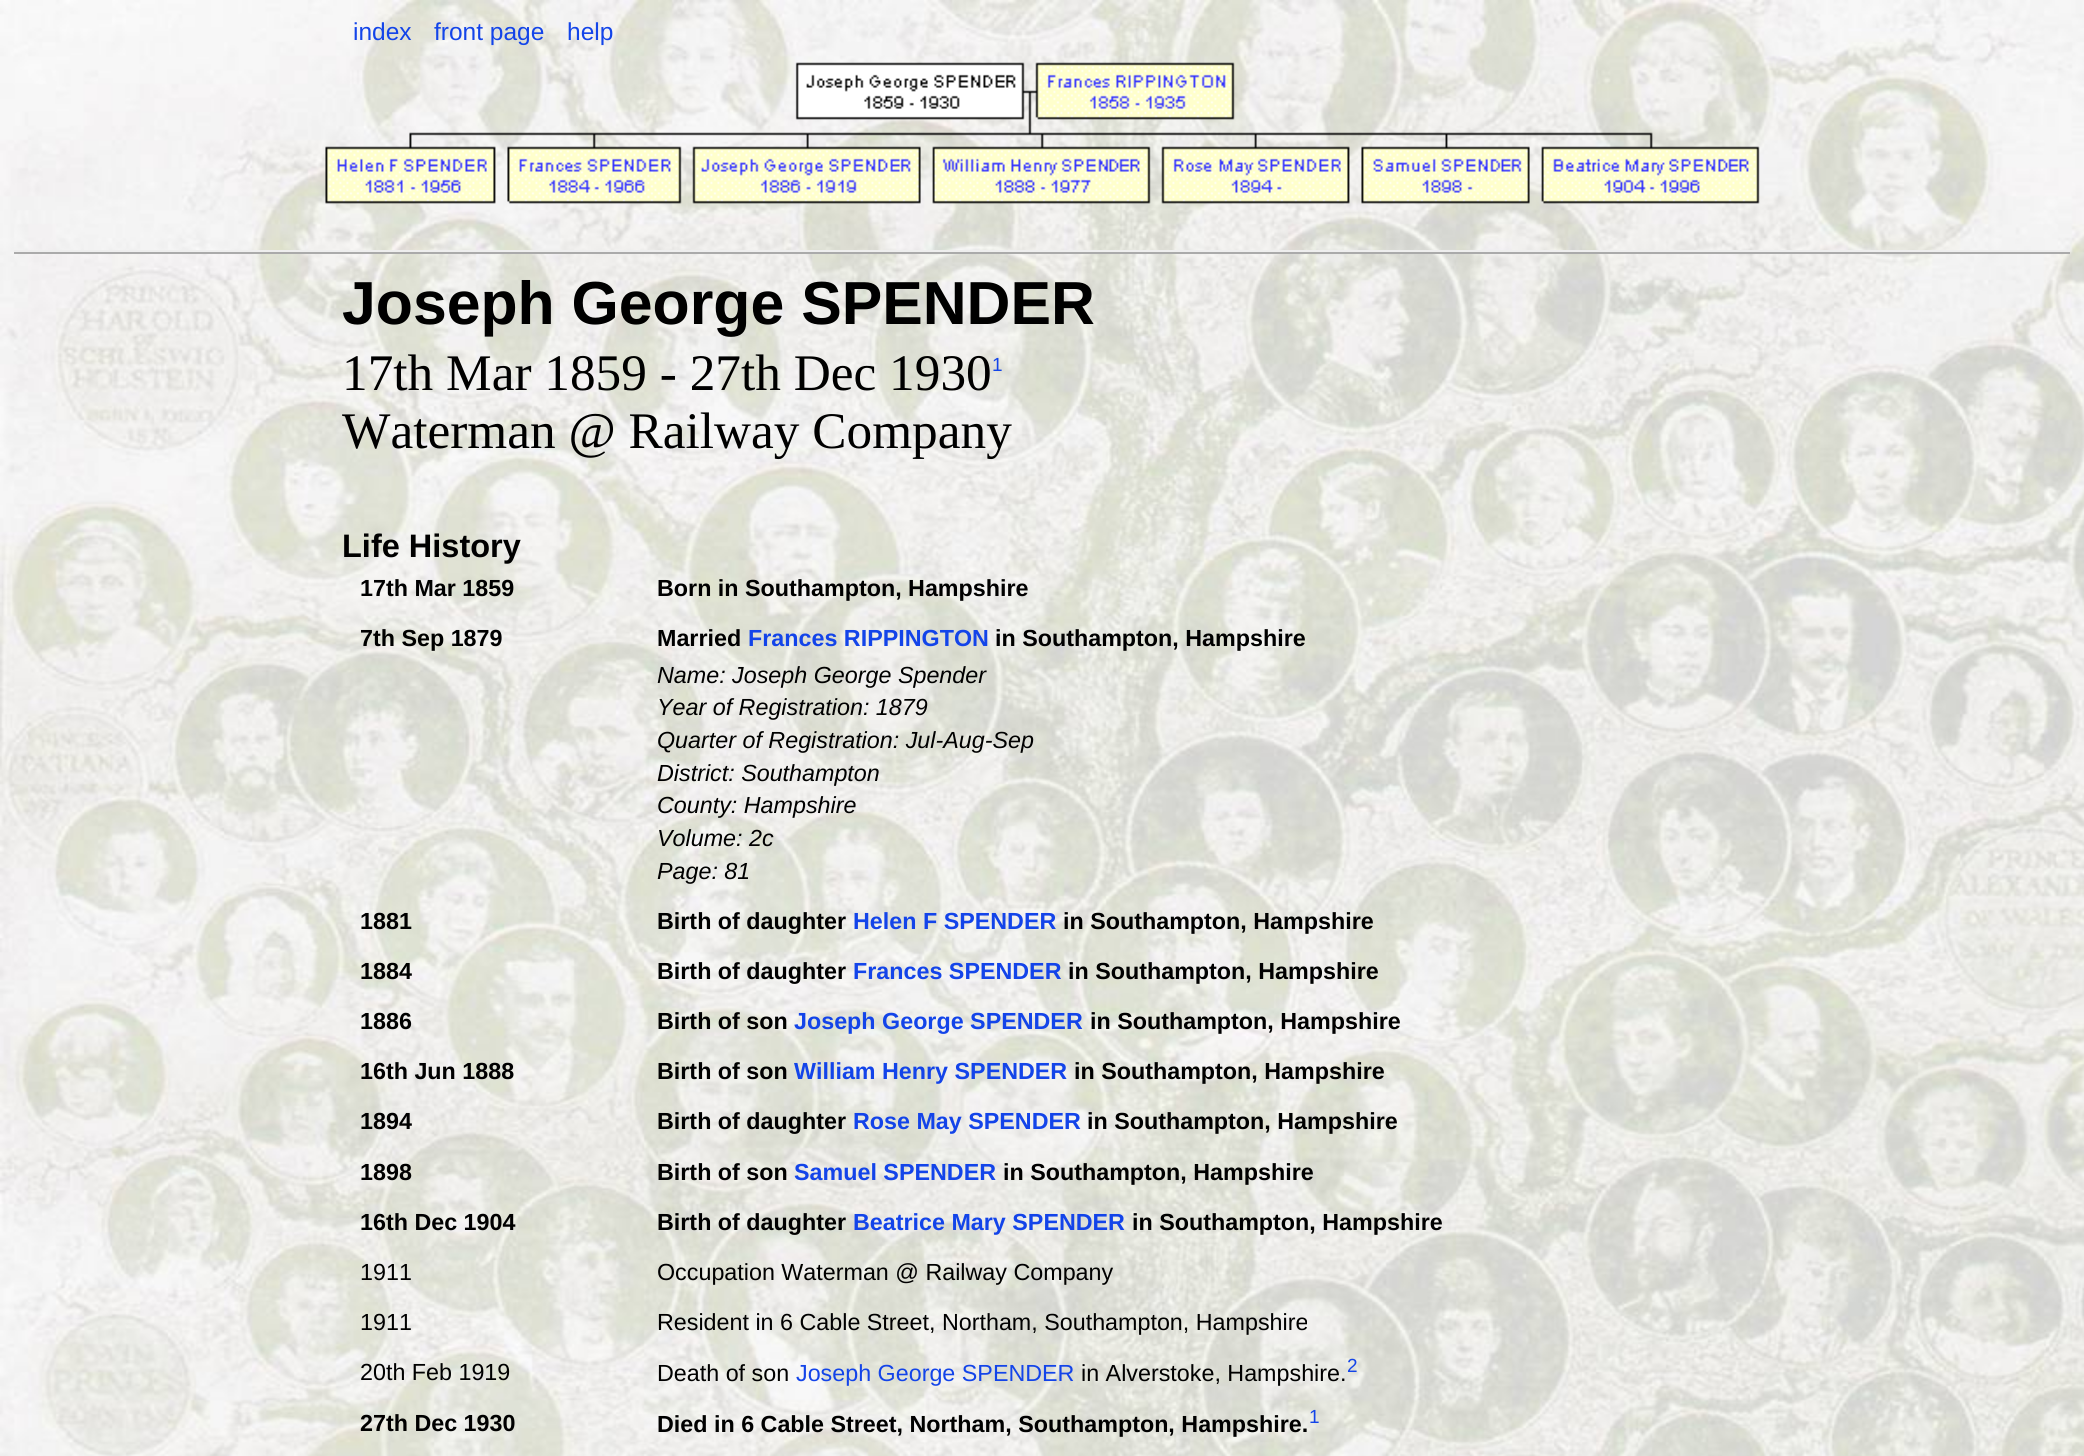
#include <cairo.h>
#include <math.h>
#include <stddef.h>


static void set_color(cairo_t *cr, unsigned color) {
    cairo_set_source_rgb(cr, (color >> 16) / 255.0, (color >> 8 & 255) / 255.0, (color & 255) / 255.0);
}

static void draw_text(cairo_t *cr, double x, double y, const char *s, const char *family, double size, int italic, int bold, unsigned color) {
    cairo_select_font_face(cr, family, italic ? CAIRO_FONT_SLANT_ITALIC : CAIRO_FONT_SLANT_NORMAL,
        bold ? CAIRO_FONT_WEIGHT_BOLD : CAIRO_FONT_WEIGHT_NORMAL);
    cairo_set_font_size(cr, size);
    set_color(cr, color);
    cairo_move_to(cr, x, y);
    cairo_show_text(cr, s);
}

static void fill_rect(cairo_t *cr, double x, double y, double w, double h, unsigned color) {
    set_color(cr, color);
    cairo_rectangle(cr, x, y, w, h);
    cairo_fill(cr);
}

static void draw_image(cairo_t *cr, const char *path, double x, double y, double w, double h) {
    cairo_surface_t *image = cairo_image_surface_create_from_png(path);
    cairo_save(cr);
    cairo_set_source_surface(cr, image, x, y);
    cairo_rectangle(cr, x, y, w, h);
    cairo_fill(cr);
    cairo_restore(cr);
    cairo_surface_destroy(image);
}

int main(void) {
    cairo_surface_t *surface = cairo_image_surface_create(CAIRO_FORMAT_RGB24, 2084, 1456);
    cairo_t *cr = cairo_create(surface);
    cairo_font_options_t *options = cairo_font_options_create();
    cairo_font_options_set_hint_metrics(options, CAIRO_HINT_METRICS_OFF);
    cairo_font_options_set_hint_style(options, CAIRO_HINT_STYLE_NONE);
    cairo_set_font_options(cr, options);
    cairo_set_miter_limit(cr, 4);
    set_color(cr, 0xFFFFFF);
    cairo_paint(cr);
    draw_image(cr, "assets/img1.png", 0, 0, 2084, 1456);
    draw_text(cr, 353, 40, "index", "Liberation Sans", 24.5, 0, 0, 0x1344E9);
    draw_text(cr, 434, 40, "front page", "Liberation Sans", 24.5, 0, 0, 0x1344E9);
    draw_text(cr, 567, 40, "help", "Liberation Sans", 24.5, 0, 0, 0x1344E9);
    draw_image(cr, "assets/img2.png", 325, 62, 1435, 142);
    fill_rect(cr, 14, 250, 2056, 2, 0xEEEEEE);
    fill_rect(cr, 14, 252, 2056, 2, 0xAAAAAA);
    draw_text(cr, 342, 324, "Joseph George SPENDER", "Liberation Sans", 60.75, 0, 1, 0x000000);
    draw_text(cr, 342, 390, "17th Mar 1859 - 27th Dec 1930", "Liberation Serif", 51.3, 0, 0, 0x000000);
    draw_text(cr, 992, 371, "1", "Liberation Sans", 19, 0, 0, 0x1344E9);
    draw_text(cr, 342, 448, "Waterman @ Railway Company", "Liberation Serif", 51.3, 0, 0, 0x000000);
    draw_text(cr, 342, 557, "Life History", "Liberation Sans", 32.5, 0, 1, 0x000000);
    draw_text(cr, 360, 596, "17th Mar 1859", "Liberation Sans", 23.3, 0, 1, 0x000000);
    draw_text(cr, 657, 596, "Born in Southampton, Hampshire", "Liberation Sans", 23.3, 0, 1, 0x000000);
    draw_text(cr, 360, 646, "7th Sep 1879", "Liberation Sans", 23.3, 0, 1, 0x000000);
    draw_text(cr, 657, 646, "Married", "Liberation Sans", 23.3, 0, 1, 0x000000);
    draw_text(cr, 748, 646, "Frances RIPPINGTON", "Liberation Sans", 23.3, 0, 1, 0x1344E9);
    draw_text(cr, 995, 646, "in Southampton, Hampshire", "Liberation Sans", 23.3, 0, 1, 0x000000);
    draw_text(cr, 657, 683, "Name: Joseph George Spender", "Liberation Sans", 23.3, 1, 0, 0x000000);
    draw_text(cr, 657, 715, "Year of Registration: 1879", "Liberation Sans", 23.3, 1, 0, 0x000000);
    draw_text(cr, 657, 748, "Quarter of Registration: Jul-Aug-Sep", "Liberation Sans", 23.3, 1, 0, 0x000000);
    draw_text(cr, 657, 781, "District: Southampton", "Liberation Sans", 23.3, 1, 0, 0x000000);
    draw_text(cr, 657, 813, "County: Hampshire", "Liberation Sans", 23.3, 1, 0, 0x000000);
    draw_text(cr, 657, 846, "Volume: 2c", "Liberation Sans", 23.3, 1, 0, 0x000000);
    draw_text(cr, 657, 879, "Page: 81", "Liberation Sans", 23.3, 1, 0, 0x000000);
    draw_text(cr, 360, 929, "1881", "Liberation Sans", 23.3, 0, 1, 0x000000);
    draw_text(cr, 657, 929, "Birth of daughter", "Liberation Sans", 23.3, 0, 1, 0x000000);
    draw_text(cr, 853, 929, "Helen F SPENDER", "Liberation Sans", 23.3, 0, 1, 0x1344E9);
    draw_text(cr, 1063, 929, "in Southampton, Hampshire", "Liberation Sans", 23.3, 0, 1, 0x000000);
    draw_text(cr, 360, 979, "1884", "Liberation Sans", 23.3, 0, 1, 0x000000);
    draw_text(cr, 657, 979, "Birth of daughter", "Liberation Sans", 23.3, 0, 1, 0x000000);
    draw_text(cr, 853, 979, "Frances SPENDER", "Liberation Sans", 23.3, 0, 1, 0x1344E9);
    draw_text(cr, 1068, 979, "in Southampton, Hampshire", "Liberation Sans", 23.3, 0, 1, 0x000000);
    draw_text(cr, 360, 1029, "1886", "Liberation Sans", 23.3, 0, 1, 0x000000);
    draw_text(cr, 657, 1029, "Birth of son", "Liberation Sans", 23.3, 0, 1, 0x000000);
    draw_text(cr, 794, 1029, "Joseph George SPENDER", "Liberation Sans", 23.3, 0, 1, 0x1344E9);
    draw_text(cr, 1090, 1029, "in Southampton, Hampshire", "Liberation Sans", 23.3, 0, 1, 0x000000);
    draw_text(cr, 360, 1079, "16th Jun 1888", "Liberation Sans", 23.3, 0, 1, 0x000000);
    draw_text(cr, 657, 1079, "Birth of son", "Liberation Sans", 23.3, 0, 1, 0x000000);
    draw_text(cr, 794, 1079, "William Henry SPENDER", "Liberation Sans", 23.3, 0, 1, 0x1344E9);
    draw_text(cr, 1074, 1079, "in Southampton, Hampshire", "Liberation Sans", 23.3, 0, 1, 0x000000);
    draw_text(cr, 360, 1129, "1894", "Liberation Sans", 23.3, 0, 1, 0x000000);
    draw_text(cr, 657, 1129, "Birth of daughter", "Liberation Sans", 23.3, 0, 1, 0x000000);
    draw_text(cr, 853, 1129, "Rose May SPENDER", "Liberation Sans", 23.3, 0, 1, 0x1344E9);
    draw_text(cr, 1087, 1129, "in Southampton, Hampshire", "Liberation Sans", 23.3, 0, 1, 0x000000);
    draw_text(cr, 360, 1180, "1898", "Liberation Sans", 23.3, 0, 1, 0x000000);
    draw_text(cr, 657, 1180, "Birth of son", "Liberation Sans", 23.3, 0, 1, 0x000000);
    draw_text(cr, 794, 1180, "Samuel SPENDER", "Liberation Sans", 23.3, 0, 1, 0x1344E9);
    draw_text(cr, 1003, 1180, "in Southampton, Hampshire", "Liberation Sans", 23.3, 0, 1, 0x000000);
    draw_text(cr, 360, 1230, "16th Dec 1904", "Liberation Sans", 23.3, 0, 1, 0x000000);
    draw_text(cr, 657, 1230, "Birth of daughter", "Liberation Sans", 23.3, 0, 1, 0x000000);
    draw_text(cr, 853, 1230, "Beatrice Mary SPENDER", "Liberation Sans", 23.3, 0, 1, 0x1344E9);
    draw_text(cr, 1132, 1230, "in Southampton, Hampshire", "Liberation Sans", 23.3, 0, 1, 0x000000);
    draw_text(cr, 360, 1280, "1911", "Liberation Sans", 23.3, 0, 0, 0x000000);
    draw_text(cr, 657, 1280, "Occupation Waterman @ Railway Company", "Liberation Sans", 23.3, 0, 0, 0x000000);
    draw_text(cr, 360, 1330, "1911", "Liberation Sans", 23.3, 0, 0, 0x000000);
    draw_text(cr, 657, 1330, "Resident in 6 Cable Street, Northam, Southampton, Hampshire", "Liberation Sans", 23.3, 0, 0, 0x000000);
    draw_text(cr, 360, 1380, "20th Feb 1919", "Liberation Sans", 23.3, 0, 0, 0x000000);
    draw_text(cr, 657, 1381, "Death of son", "Liberation Sans", 23.3, 0, 0, 0x000000);
    draw_text(cr, 796, 1381, "Joseph George SPENDER", "Liberation Sans", 23.3, 0, 0, 0x1344E9);
    draw_text(cr, 1081, 1381, "in Alverstoke, Hampshire.", "Liberation Sans", 23.3, 0, 0, 0x000000);
    draw_text(cr, 1347, 1372, "2", "Liberation Sans", 19, 0, 0, 0x1344E9);
    draw_text(cr, 360, 1431, "27th Dec 1930", "Liberation Sans", 23.3, 0, 1, 0x000000);
    draw_text(cr, 657, 1432, "Died in 6 Cable Street, Northam, Southampton, Hampshire.", "Liberation Sans", 23.3, 0, 1, 0x000000);
    draw_text(cr, 1309, 1423, "1", "Liberation Sans", 19, 0, 0, 0x1344E9);
    cairo_surface_write_to_png(surface, "output.png");
    cairo_font_options_destroy(options);
    cairo_destroy(cr);
    cairo_surface_destroy(surface);
    return 0;
}
